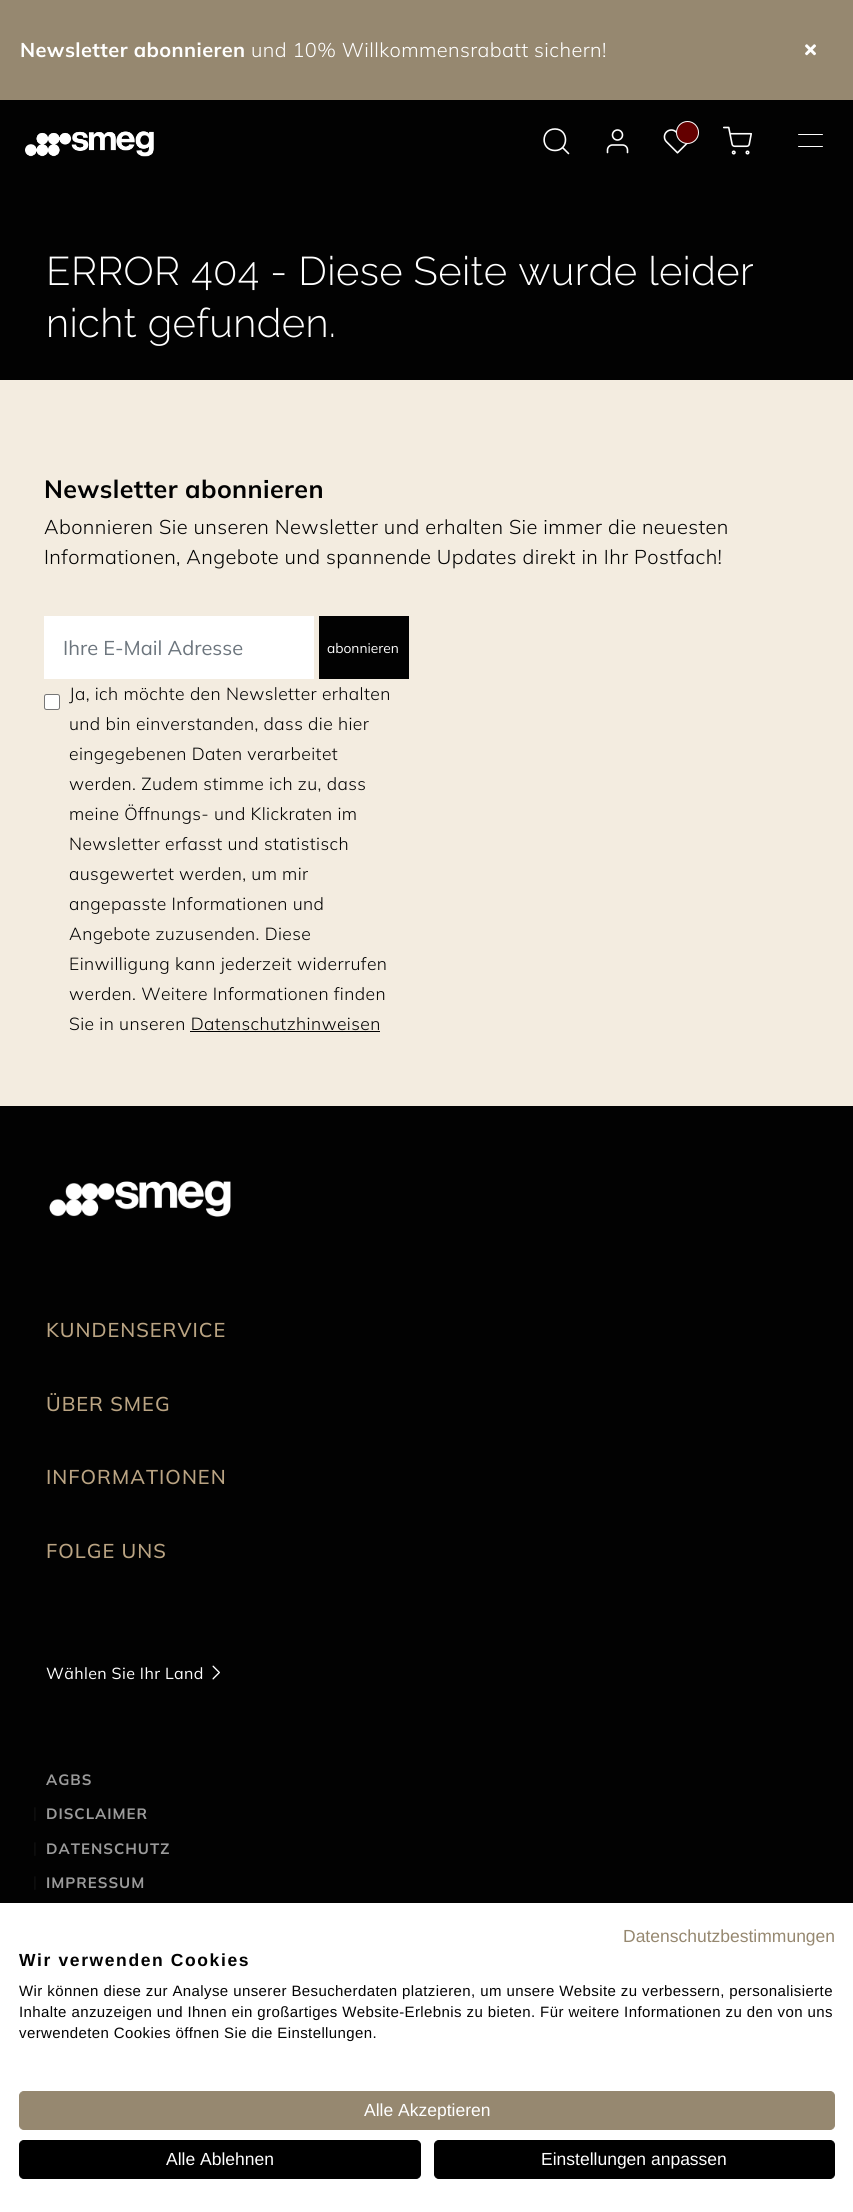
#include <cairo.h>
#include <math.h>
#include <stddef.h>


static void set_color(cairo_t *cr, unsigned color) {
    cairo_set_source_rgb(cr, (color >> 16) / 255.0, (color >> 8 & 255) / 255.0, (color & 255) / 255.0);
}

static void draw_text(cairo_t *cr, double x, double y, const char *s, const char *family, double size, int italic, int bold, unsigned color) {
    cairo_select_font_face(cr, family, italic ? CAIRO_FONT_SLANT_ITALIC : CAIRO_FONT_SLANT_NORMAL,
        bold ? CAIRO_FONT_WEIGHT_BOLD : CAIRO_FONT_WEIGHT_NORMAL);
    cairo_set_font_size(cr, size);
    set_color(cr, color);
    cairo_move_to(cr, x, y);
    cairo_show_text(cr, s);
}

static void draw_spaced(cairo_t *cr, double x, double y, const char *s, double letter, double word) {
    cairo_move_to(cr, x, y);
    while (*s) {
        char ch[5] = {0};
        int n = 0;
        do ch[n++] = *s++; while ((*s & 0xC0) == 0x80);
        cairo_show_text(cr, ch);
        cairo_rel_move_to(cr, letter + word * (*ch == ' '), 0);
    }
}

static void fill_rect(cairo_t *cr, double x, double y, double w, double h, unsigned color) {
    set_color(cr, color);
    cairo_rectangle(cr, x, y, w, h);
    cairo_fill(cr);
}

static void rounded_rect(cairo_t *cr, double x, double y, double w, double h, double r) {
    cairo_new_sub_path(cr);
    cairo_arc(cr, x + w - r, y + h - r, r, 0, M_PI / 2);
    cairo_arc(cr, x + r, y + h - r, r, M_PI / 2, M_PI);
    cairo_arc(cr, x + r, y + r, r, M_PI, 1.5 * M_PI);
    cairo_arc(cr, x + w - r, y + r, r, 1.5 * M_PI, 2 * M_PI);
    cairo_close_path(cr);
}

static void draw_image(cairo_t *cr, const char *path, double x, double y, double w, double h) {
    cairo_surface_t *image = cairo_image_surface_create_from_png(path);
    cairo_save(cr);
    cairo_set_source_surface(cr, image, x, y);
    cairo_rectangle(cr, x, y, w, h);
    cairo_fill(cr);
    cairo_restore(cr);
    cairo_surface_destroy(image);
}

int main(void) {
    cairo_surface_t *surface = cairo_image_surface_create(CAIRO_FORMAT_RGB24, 853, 2212);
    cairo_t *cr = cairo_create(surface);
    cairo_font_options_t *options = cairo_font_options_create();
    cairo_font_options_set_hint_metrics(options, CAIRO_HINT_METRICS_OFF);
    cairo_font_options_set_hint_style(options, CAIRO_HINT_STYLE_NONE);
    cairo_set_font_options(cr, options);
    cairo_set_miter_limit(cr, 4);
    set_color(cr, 0x020202);
    cairo_paint(cr);
    fill_rect(cr, 0, 0, 853, 100, 0x968870);
    cairo_select_font_face(cr, "Mulish", CAIRO_FONT_SLANT_NORMAL, CAIRO_FONT_WEIGHT_BOLD);
    cairo_set_font_size(cr, 20);
    set_color(cr, 0xFFFFFF);
    draw_spaced(cr, 20, 57, "Newsletter abonnieren", 0.4, 0);
    cairo_select_font_face(cr, "Mulish Light", CAIRO_FONT_SLANT_NORMAL, CAIRO_FONT_WEIGHT_NORMAL);
    draw_spaced(cr, 251, 57, "und 10% Willkommensrabatt sichern!", 0.4, 0);
    draw_image(cr, "assets/img1.png", 805, 44, 11, 12);
    draw_image(cr, "assets/img2.png", 25, 131, 129, 26);
    cairo_new_path(cr);
    cairo_move_to(cr, 555, 150.5);
    cairo_curve_to(cr, 569, 150.5, 569, 129, 555, 129);
    cairo_curve_to(cr, 540.5, 129, 540.5, 150.5, 555, 150.5);
    cairo_close_path(cr);
    cairo_move_to(cr, 568.5, 153.5);
    cairo_line_to(cr, 562.5, 147.5);
    cairo_set_line_width(cr, 1.6);
    cairo_set_line_cap(cr, CAIRO_LINE_CAP_ROUND);
    cairo_set_line_join(cr, CAIRO_LINE_JOIN_ROUND);
    cairo_stroke(cr);
    draw_image(cr, "assets/img3.png", 606, 129, 23, 25);
    draw_image(cr, "assets/img4.png", 663, 129, 26, 25);
    set_color(cr, 0x640000);
    cairo_arc(cr, 687.5, 132.5, 11, 0, 2 * M_PI);
    cairo_fill_preserve(cr);
    set_color(cr, 0xFFFFFF);
    cairo_set_line_width(cr, 1);
    cairo_set_line_cap(cr, CAIRO_LINE_CAP_BUTT);
    cairo_set_line_join(cr, CAIRO_LINE_JOIN_MITER);
    cairo_stroke(cr);
    draw_image(cr, "assets/img5.png", 723, 126, 29, 29);
    rounded_rect(cr, 798, 134, 25, 1, 0.5);
    cairo_fill(cr);
    rounded_rect(cr, 798, 146, 25, 1, 0.5);
    cairo_fill(cr);
    cairo_select_font_face(cr, "Raleway Light", CAIRO_FONT_SLANT_NORMAL, CAIRO_FONT_WEIGHT_NORMAL);
    cairo_set_font_size(cr, 40);
    draw_spaced(cr, 46, 285, "ERROR 404 - Diese Seite wurde leider", 0.4, 0);
    draw_spaced(cr, 46, 337, "nicht gefunden.", 0.4, 0);
    fill_rect(cr, 0, 380, 853, 726, 0xF3ECE0);
    cairo_select_font_face(cr, "Mulish", CAIRO_FONT_SLANT_NORMAL, CAIRO_FONT_WEIGHT_BOLD);
    cairo_set_font_size(cr, 25);
    set_color(cr, 0x020202);
    draw_spaced(cr, 44, 498, "Newsletter abonnieren", 0.4, 0);
    cairo_select_font_face(cr, "Mulish Light", CAIRO_FONT_SLANT_NORMAL, CAIRO_FONT_WEIGHT_NORMAL);
    cairo_set_font_size(cr, 20);
    draw_spaced(cr, 44, 534, "Abonnieren Sie unseren Newsletter und erhalten Sie immer die neuesten", 0.4, 0);
    draw_spaced(cr, 44, 564, "Informationen, Angebote und spannende Updates direkt in Ihr Postfach!", 0.4, 0);
    fill_rect(cr, 44, 616, 270, 63, 0xFFFFFF);
    draw_text(cr, 63, 655, "Ihre E-Mail Adresse", "Mulish", 20, 0, 0, 0x6C757D);
    fill_rect(cr, 319, 616, 90, 63, 0x020202);
    draw_text(cr, 327, 653, "abonnieren", "Mulish", 13.75, 0, 0, 0xFFFFFF);
    rounded_rect(cr, 44.5, 694.5, 15, 15, 2);
    cairo_fill_preserve(cr);
    set_color(cr, 0x767676);
    cairo_stroke(cr);
    cairo_select_font_face(cr, "Mulish Light", CAIRO_FONT_SLANT_NORMAL, CAIRO_FONT_WEIGHT_NORMAL);
    cairo_set_font_size(cr, 17.5);
    set_color(cr, 0x020202);
    draw_spaced(cr, 69, 700, "Ja, ich möchte den Newsletter erhalten", 0.4, 0);
    draw_spaced(cr, 69, 730, "und bin einverstanden, dass die hier", 0.4, 0);
    draw_spaced(cr, 69, 760, "eingegebenen Daten verarbeitet", 0.4, 0);
    draw_spaced(cr, 69, 790, "werden. Zudem stimme ich zu, dass", 0.4, 0);
    draw_spaced(cr, 69, 820, "meine Öffnungs- und Klickraten im", 0.4, 0);
    draw_spaced(cr, 69, 850, "Newsletter erfasst und statistisch", 0.4, 0);
    draw_spaced(cr, 69, 880, "ausgewertet werden, um mir", 0.4, 0);
    draw_spaced(cr, 69, 910, "angepasste Informationen und", 0.4, 0);
    draw_spaced(cr, 69, 940, "Angebote zuzusenden. Diese", 0.4, 0);
    draw_spaced(cr, 69, 970, "Einwilligung kann jederzeit widerrufen", 0.4, 0);
    draw_spaced(cr, 69, 1000, "werden. Weitere Informationen finden", 0.4, 0);
    draw_spaced(cr, 69, 1030, "Sie in unseren Datenschutzhinweisen", 0.4, 0);
    fill_rect(cr, 190, 1031, 190, 1, 0x020202);
    draw_image(cr, "assets/img6.png", 49, 1180, 182, 37);
    cairo_select_font_face(cr, "Mulish Medium", CAIRO_FONT_SLANT_NORMAL, CAIRO_FONT_WEIGHT_NORMAL);
    cairo_set_font_size(cr, 20);
    set_color(cr, 0xBAA483);
    draw_spaced(cr, 46, 1337, "KUNDENSERVICE", 1, 0);
    draw_spaced(cr, 46, 1411, "ÜBER SMEG", 1, 0);
    draw_spaced(cr, 46, 1484, "INFORMATIONEN", 1, 0);
    draw_spaced(cr, 46, 1558, "FOLGE UNS", 1, 0);
    cairo_select_font_face(cr, "Mulish", CAIRO_FONT_SLANT_NORMAL, CAIRO_FONT_WEIGHT_NORMAL);
    cairo_set_font_size(cr, 16);
    set_color(cr, 0xFFFFFF);
    draw_spaced(cr, 46, 1679, "Wählen Sie Ihr Land", 0.4, 0);
    draw_image(cr, "assets/img7.png", 212, 1665, 8, 15);
    cairo_select_font_face(cr, "Mulish", CAIRO_FONT_SLANT_NORMAL, CAIRO_FONT_WEIGHT_BOLD);
    cairo_set_font_size(cr, 15);
    set_color(cr, 0x9B9B9B);
    draw_spaced(cr, 46, 1785, "AGBS", 1, 0);
    cairo_select_font_face(cr, "Mulish Light", CAIRO_FONT_SLANT_NORMAL, CAIRO_FONT_WEIGHT_NORMAL);
    set_color(cr, 0x161616);
    draw_spaced(cr, 33, 1818, "|", 1, 0);
    cairo_select_font_face(cr, "Mulish", CAIRO_FONT_SLANT_NORMAL, CAIRO_FONT_WEIGHT_BOLD);
    set_color(cr, 0x9B9B9B);
    draw_spaced(cr, 46, 1819, "DISCLAIMER", 1, 0);
    cairo_select_font_face(cr, "Mulish Light", CAIRO_FONT_SLANT_NORMAL, CAIRO_FONT_WEIGHT_NORMAL);
    set_color(cr, 0x161616);
    draw_spaced(cr, 33, 1853, "|", 1, 0);
    cairo_select_font_face(cr, "Mulish", CAIRO_FONT_SLANT_NORMAL, CAIRO_FONT_WEIGHT_BOLD);
    set_color(cr, 0x9B9B9B);
    draw_spaced(cr, 46, 1854, "DATENSCHUTZ", 1, 0);
    cairo_select_font_face(cr, "Mulish Light", CAIRO_FONT_SLANT_NORMAL, CAIRO_FONT_WEIGHT_NORMAL);
    set_color(cr, 0x161616);
    draw_spaced(cr, 33, 1887, "|", 1, 0);
    cairo_select_font_face(cr, "Mulish", CAIRO_FONT_SLANT_NORMAL, CAIRO_FONT_WEIGHT_BOLD);
    set_color(cr, 0x9B9B9B);
    draw_spaced(cr, 46, 1888, "IMPRESSUM", 1, 0);
    fill_rect(cr, 0, 1903, 853, 309, 0xFFFFFF);
    draw_text(cr, 623, 1942, "Datenschutzbestimmungen", "Liberation Sans", 17.5, 0, 0, 0x968870);
    cairo_select_font_face(cr, "Liberation Sans", CAIRO_FONT_SLANT_NORMAL, CAIRO_FONT_WEIGHT_BOLD);
    set_color(cr, 0x020202);
    draw_spaced(cr, 19, 1966, "Wir verwenden Cookies", 1.6, 0);
    cairo_select_font_face(cr, "Liberation Sans", CAIRO_FONT_SLANT_NORMAL, CAIRO_FONT_WEIGHT_NORMAL);
    cairo_set_font_size(cr, 15);
    draw_spaced(cr, 19, 1996, "Wir können diese zur Analyse unserer Besucherdaten platzieren, um unsere Website zu verbessern, personalisierte", 0.4, 0);
    draw_spaced(cr, 19, 2017, "Inhalte anzuzeigen und Ihnen ein großartiges Website-Erlebnis zu bieten. Für weitere Informationen zu den von uns", 0.4, 0);
    draw_spaced(cr, 19, 2038, "verwendeten Cookies öffnen Sie die Einstellungen.", 0.4, 0);
    set_color(cr, 0x968870);
    rounded_rect(cr, 19.5, 2091.5, 815, 38, 4.5);
    cairo_fill_preserve(cr);
    cairo_stroke(cr);
    draw_text(cr, 364, 2116, "Alle Akzeptieren", "Liberation Sans", 17.5, 0, 0, 0xFFFFFF);
    set_color(cr, 0x000000);
    rounded_rect(cr, 19.5, 2140.5, 401, 38, 4.5);
    cairo_fill_preserve(cr);
    cairo_stroke(cr);
    draw_text(cr, 166, 2165, "Alle Ablehnen", "Liberation Sans", 17.5, 0, 0, 0xFFFFFF);
    set_color(cr, 0x000000);
    rounded_rect(cr, 434.5, 2140.5, 400, 38, 4.5);
    cairo_fill_preserve(cr);
    cairo_stroke(cr);
    draw_text(cr, 541, 2165, "Einstellungen anpassen", "Liberation Sans", 17.5, 0, 0, 0xFFFFFF);
    cairo_surface_write_to_png(surface, "output.png");
    cairo_font_options_destroy(options);
    cairo_destroy(cr);
    cairo_surface_destroy(surface);
    return 0;
}
